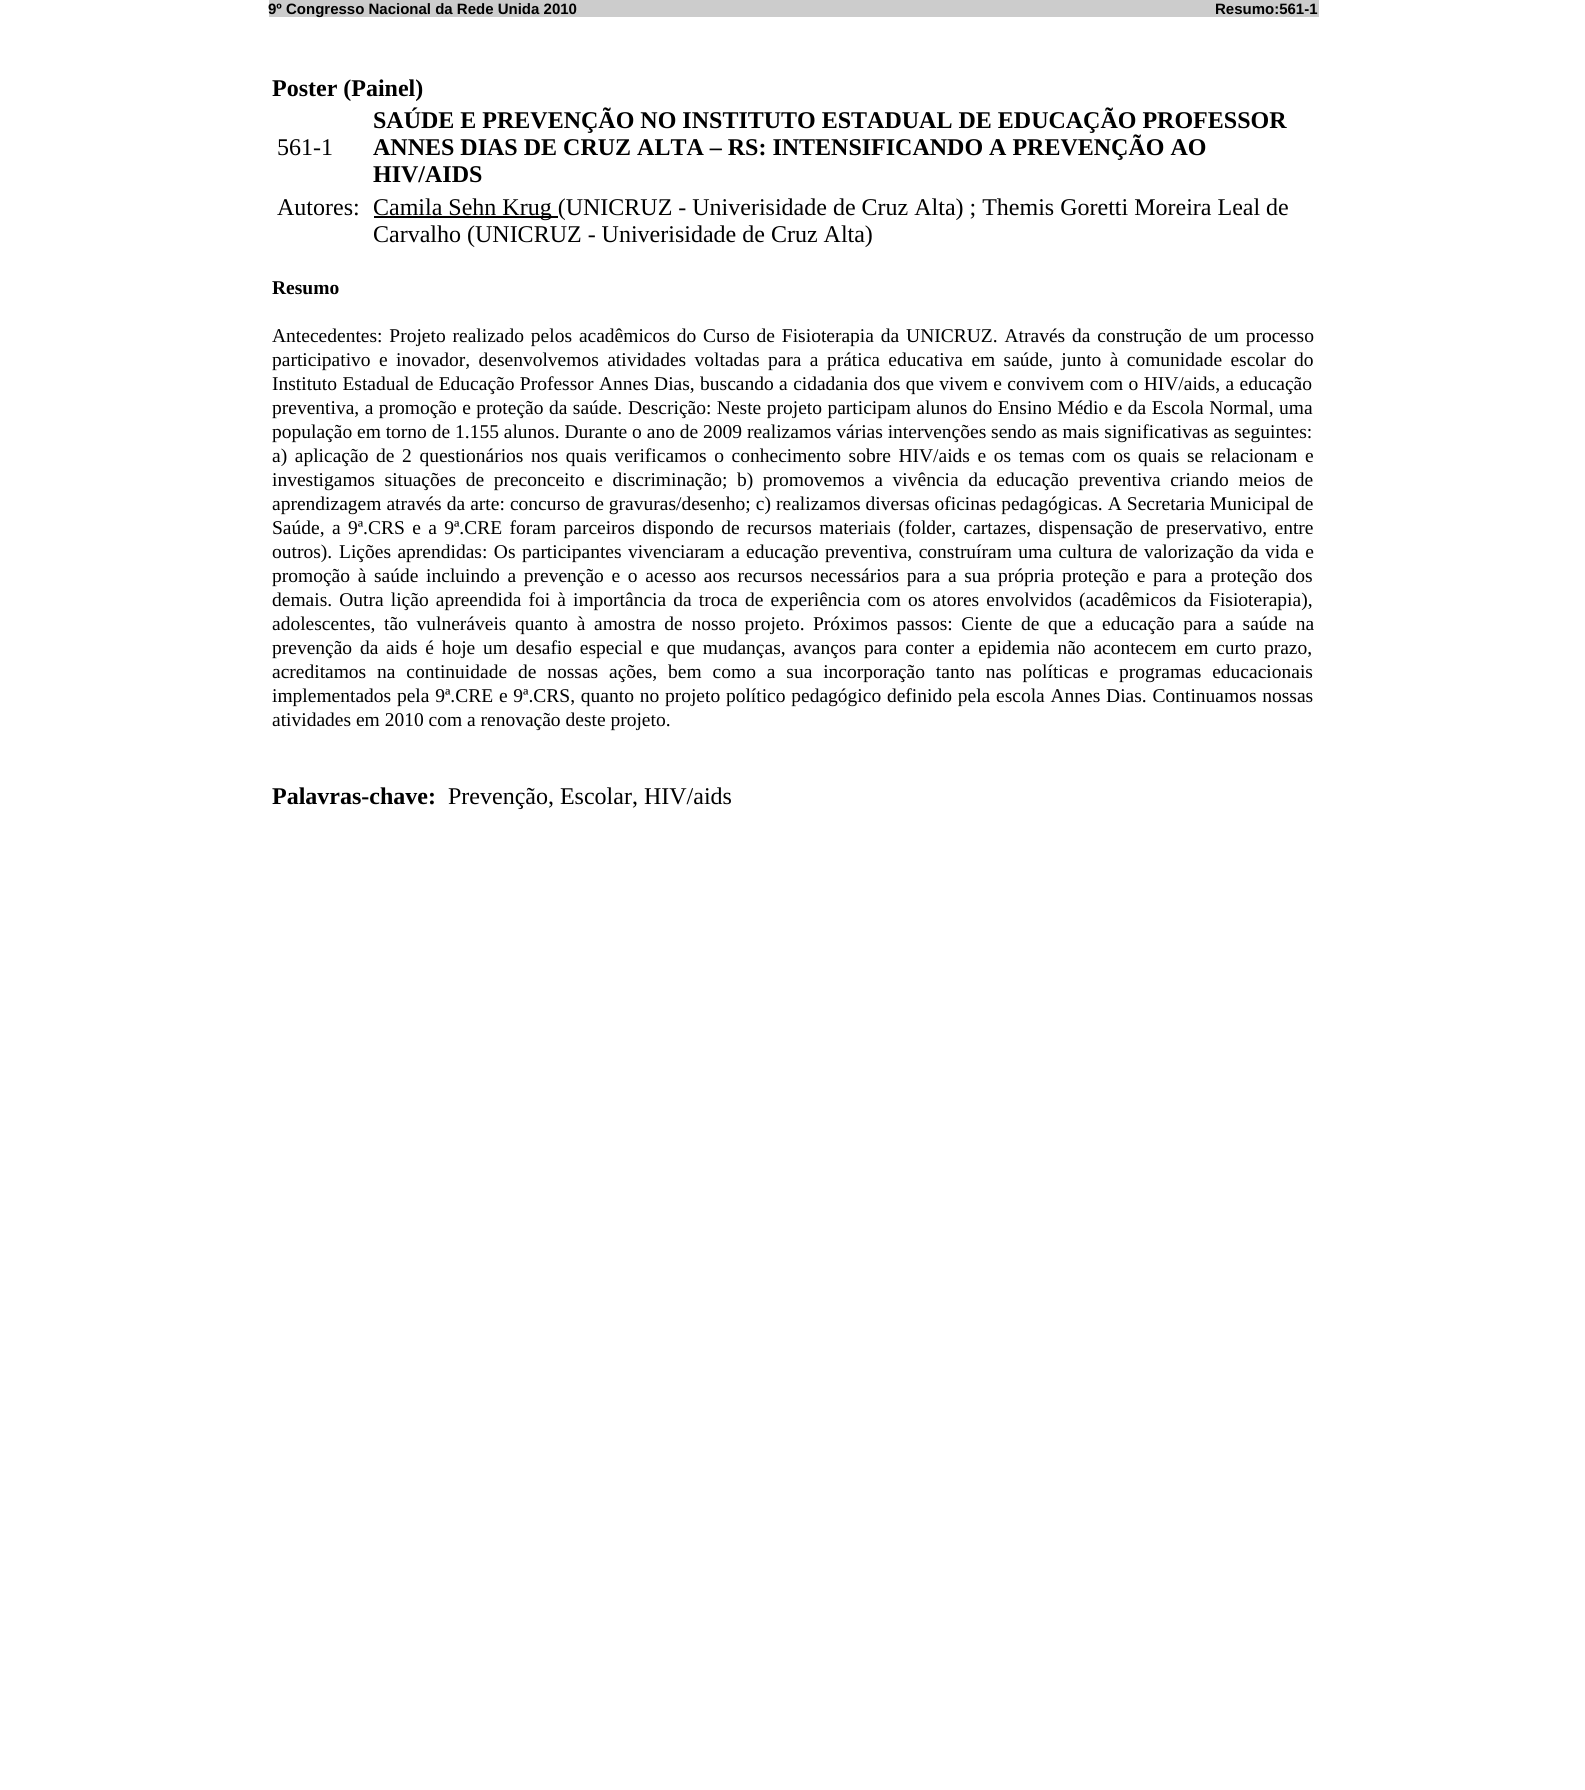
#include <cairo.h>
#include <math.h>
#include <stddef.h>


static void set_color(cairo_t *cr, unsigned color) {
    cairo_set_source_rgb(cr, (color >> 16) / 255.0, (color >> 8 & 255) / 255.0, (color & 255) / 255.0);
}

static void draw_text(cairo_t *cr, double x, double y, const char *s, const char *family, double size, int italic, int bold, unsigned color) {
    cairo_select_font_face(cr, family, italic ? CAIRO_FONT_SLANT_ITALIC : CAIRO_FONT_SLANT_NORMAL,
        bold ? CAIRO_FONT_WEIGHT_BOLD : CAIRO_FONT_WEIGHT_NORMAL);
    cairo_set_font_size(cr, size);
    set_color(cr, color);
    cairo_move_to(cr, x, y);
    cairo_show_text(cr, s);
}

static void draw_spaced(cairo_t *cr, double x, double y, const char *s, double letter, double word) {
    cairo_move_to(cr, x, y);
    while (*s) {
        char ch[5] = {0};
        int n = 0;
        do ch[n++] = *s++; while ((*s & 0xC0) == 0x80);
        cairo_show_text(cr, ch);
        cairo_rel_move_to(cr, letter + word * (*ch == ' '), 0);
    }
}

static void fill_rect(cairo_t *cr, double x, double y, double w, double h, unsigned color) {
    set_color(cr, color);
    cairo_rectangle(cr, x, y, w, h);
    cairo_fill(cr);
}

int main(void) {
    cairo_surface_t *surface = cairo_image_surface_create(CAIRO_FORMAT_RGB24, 1585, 1790);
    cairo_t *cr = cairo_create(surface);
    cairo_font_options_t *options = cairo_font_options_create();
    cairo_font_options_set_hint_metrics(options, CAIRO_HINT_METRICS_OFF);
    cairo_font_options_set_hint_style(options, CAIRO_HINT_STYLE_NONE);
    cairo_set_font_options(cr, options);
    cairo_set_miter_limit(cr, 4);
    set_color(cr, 0xFFFFFF);
    cairo_paint(cr);
    fill_rect(cr, 269, 0, 1050, 17, 0xCCCCCC);
    draw_text(cr, 268, 14, "9º Congresso Nacional da Rede Unida 2010", "Liberation Sans", 15, 0, 1, 0x000000);
    draw_text(cr, 1215, 14, "Resumo:561-1", "Liberation Sans", 15, 0, 1, 0x000000);
    draw_text(cr, 272, 96, "Poster (Painel)", "Liberation Serif", 24, 0, 1, 0x000000);
    draw_text(cr, 277, 155, "561-1", "Liberation Serif", 24, 0, 0, 0x000000);
    draw_text(cr, 373, 128, "SAÚDE E PREVENÇÃO NO INSTITUTO ESTADUAL DE EDUCAÇÃO PROFESSOR", "Liberation Serif", 24, 0, 1, 0x000000);
    draw_text(cr, 373, 155, "ANNES DIAS DE CRUZ ALTA – RS: INTENSIFICANDO A PREVENÇÃO AO", "Liberation Serif", 24, 0, 1, 0x000000);
    draw_text(cr, 373, 182, "HIV/AIDS", "Liberation Serif", 24, 0, 1, 0x000000);
    draw_text(cr, 277, 215, "Autores:", "Liberation Serif", 24, 0, 0, 0x000000);
    fill_rect(cr, 374, 216, 184, 2, 0x000000);
    draw_text(cr, 373, 215, "Camila Sehn Krug (UNICRUZ - Univerisidade de Cruz Alta) ; Themis Goretti Moreira Leal de", "Liberation Serif", 24, 0, 0, 0x000000);
    draw_text(cr, 373, 242, "Carvalho (UNICRUZ - Univerisidade de Cruz Alta)", "Liberation Serif", 24, 0, 0, 0x000000);
    draw_text(cr, 272, 294, "Resumo", "Liberation Serif", 19.5, 0, 1, 0x000000);
    cairo_select_font_face(cr, "Liberation Serif", CAIRO_FONT_SLANT_NORMAL, CAIRO_FONT_WEIGHT_NORMAL);
    draw_spaced(cr, 272, 342, "Antecedentes: Projeto realizado pelos acadêmicos do Curso de Fisioterapia da UNICRUZ. Através da construção de um processo", 0, 2);
    draw_spaced(cr, 272, 366, "participativo e inovador, desenvolvemos atividades voltadas para a prática educativa em saúde, junto à comunidade escolar do", 0, 3.5);
    draw_spaced(cr, 272, 390, "Instituto Estadual de Educação Professor Annes Dias, buscando a cidadania dos que vivem e convivem com o HIV/aids, a educação", 0, 0.5);
    draw_spaced(cr, 272, 414, "preventiva, a promoção e proteção da saúde.", 0, 0.6);
    draw_spaced(cr, 628, 414, "Descrição: Neste projeto participam alunos do Ensino Médio e da Escola Normal, uma", 0, 0.6);
    draw_text(cr, 272, 438, "população em torno de 1.155 alunos. Durante o ano de 2009 realizamos várias intervenções sendo as mais significativas as seguintes:", "Liberation Serif", 19.5, 0, 0, 0x000000);
    draw_spaced(cr, 272, 462, "a) aplicação de 2 questionários nos quais verificamos o conhecimento sobre HIV/aids e os temas com os quais se relacionam e", 0, 2.75);
    draw_spaced(cr, 272, 486, "investigamos situações de preconceito e discriminação; b) promovemos a vivência da educação preventiva criando meios de", 0, 4.75);
    draw_spaced(cr, 272, 510, "aprendizagem através da arte: concurso de gravuras/desenho; c) realizamos diversas oficinas pedagógicas. A Secretaria Municipal de", 0, 0.2);
    draw_spaced(cr, 272, 534, "Saúde, a 9ª.CRS e a 9ª.CRE foram parceiros dispondo de recursos materiais (folder, cartazes, dispensação de preservativo, entre", 0, 2.5);
    draw_text(cr, 272, 558, "outros).", "Liberation Serif", 19.5, 0, 0, 0x000000);
    draw_spaced(cr, 339, 558, "Lições aprendidas: Os participantes vivenciaram a educação preventiva, construíram uma cultura de valorização da vida e", 0, 1.6);
    draw_spaced(cr, 272, 582, "promoção à saúde incluindo a prevenção e o acesso aos recursos necessários para a sua própria proteção e para a proteção dos", 0, 2.8);
    draw_spaced(cr, 272, 606, "demais. Outra lição apreendida foi à importância da troca de experiência com os atores envolvidos (acadêmicos da Fisioterapia),", 0, 2.25);
    draw_spaced(cr, 272, 630, "adolescentes, tão vulneráveis quanto à amostra de nosso projeto.", 0, 3.75);
    draw_spaced(cr, 813, 630, "Próximos passos: Ciente de que a educação para a saúde na", 0, 3.75);
    draw_spaced(cr, 272, 654, "prevenção da aids é hoje um desafio especial e que mudanças, avanços para conter a epidemia não acontecem em curto prazo,", 0, 2.9);
    draw_spaced(cr, 272, 678, "acreditamos na continuidade de nossas ações, bem como a sua incorporação tanto nas políticas e programas educacionais", 0, 6);
    draw_spaced(cr, 272, 702, "implementados pela 9ª.CRE e 9ª.CRS, quanto no projeto político pedagógico definido pela escola Annes Dias. Continuamos nossas", 0, 0.9);
    draw_text(cr, 272, 726, "atividades em 2010 com a renovação deste projeto.", "Liberation Serif", 19.5, 0, 0, 0x000000);
    draw_text(cr, 272, 804, "Palavras-chave:", "Liberation Serif", 24, 0, 1, 0x000000);
    draw_text(cr, 448, 804, "Prevenção, Escolar, HIV/aids", "Liberation Serif", 24, 0, 0, 0x000000);
    cairo_surface_write_to_png(surface, "output.png");
    cairo_font_options_destroy(options);
    cairo_destroy(cr);
    cairo_surface_destroy(surface);
    return 0;
}
